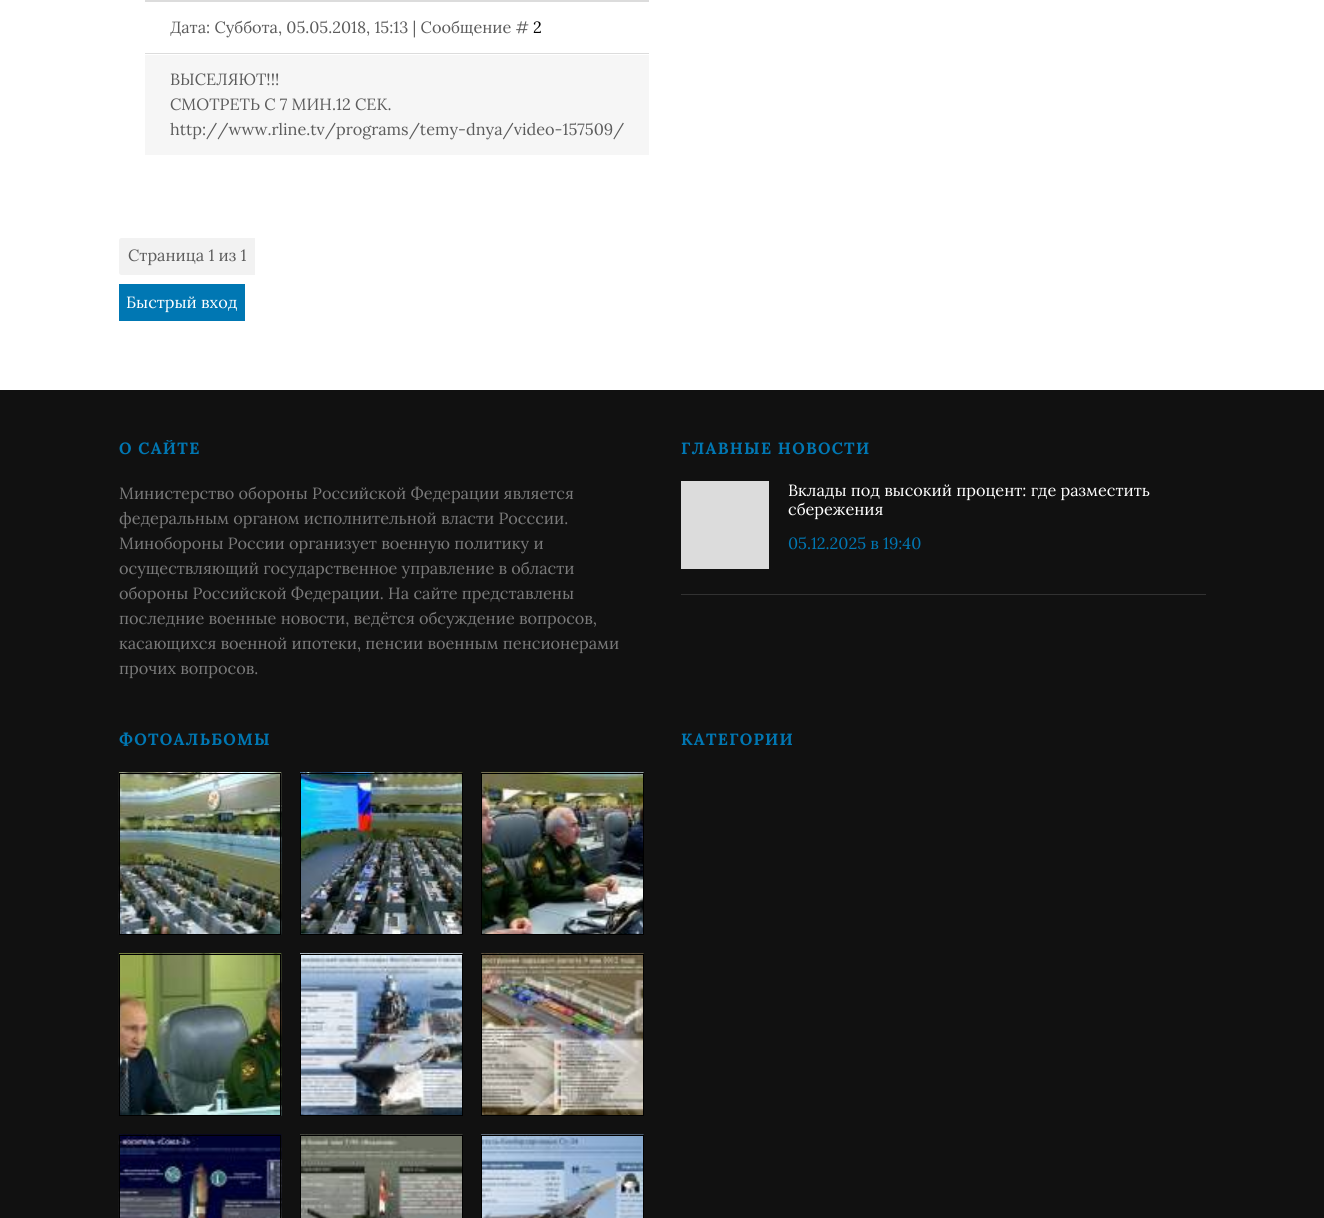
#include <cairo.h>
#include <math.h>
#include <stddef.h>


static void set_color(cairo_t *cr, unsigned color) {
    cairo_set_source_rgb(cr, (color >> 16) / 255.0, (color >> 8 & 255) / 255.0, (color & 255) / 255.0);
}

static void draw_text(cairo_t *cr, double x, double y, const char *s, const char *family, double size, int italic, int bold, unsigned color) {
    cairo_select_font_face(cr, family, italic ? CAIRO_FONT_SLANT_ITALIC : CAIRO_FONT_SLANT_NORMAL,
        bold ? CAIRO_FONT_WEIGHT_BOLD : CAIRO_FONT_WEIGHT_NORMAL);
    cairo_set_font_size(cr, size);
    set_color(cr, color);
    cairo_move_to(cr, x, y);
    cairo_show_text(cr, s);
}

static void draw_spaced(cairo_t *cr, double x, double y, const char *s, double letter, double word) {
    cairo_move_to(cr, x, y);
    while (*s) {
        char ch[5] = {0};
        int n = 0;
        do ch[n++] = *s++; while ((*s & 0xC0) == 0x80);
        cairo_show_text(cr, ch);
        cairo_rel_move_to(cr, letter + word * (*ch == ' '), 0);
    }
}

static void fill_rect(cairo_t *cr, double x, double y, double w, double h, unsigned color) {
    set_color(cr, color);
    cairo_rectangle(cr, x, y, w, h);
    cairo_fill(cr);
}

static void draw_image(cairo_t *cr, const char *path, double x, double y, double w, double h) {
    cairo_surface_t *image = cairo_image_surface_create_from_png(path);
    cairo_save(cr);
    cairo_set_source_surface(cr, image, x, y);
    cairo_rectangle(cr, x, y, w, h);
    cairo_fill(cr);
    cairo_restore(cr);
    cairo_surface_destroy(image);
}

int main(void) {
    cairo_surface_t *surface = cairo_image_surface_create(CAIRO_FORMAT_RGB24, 1324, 1218);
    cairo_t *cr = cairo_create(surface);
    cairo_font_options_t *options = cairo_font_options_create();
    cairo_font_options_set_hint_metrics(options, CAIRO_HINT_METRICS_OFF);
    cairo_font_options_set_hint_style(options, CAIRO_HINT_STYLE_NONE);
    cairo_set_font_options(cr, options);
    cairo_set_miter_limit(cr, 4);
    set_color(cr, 0xFFFFFF);
    cairo_paint(cr);
    fill_rect(cr, 145, 0, 504, 2, 0xDCDCDC);
    fill_rect(cr, 145, 53, 504, 1, 0xDCDCDC);
    draw_text(cr, 170, 33, "Дата: Суббота, 05.05.2018, 15:13 | Сообщение #", "Lora", 16.25, 0, 0, 0x5C5C5C);
    draw_text(cr, 533, 33, "2", "Lora", 16.25, 0, 0, 0x000000);
    fill_rect(cr, 145, 55, 504, 100, 0xF6F6F6);
    draw_text(cr, 170, 85, "ВЫСЕЛЯЮТ!!!", "Lora", 16.25, 0, 0, 0x5C5C5C);
    draw_text(cr, 170, 110, "СМОТРЕТЬ С 7 МИН.12 СЕК.", "Lora", 16.25, 0, 0, 0x5C5C5C);
    draw_text(cr, 170, 135, "http://www.rline.tv/programs/temy-dnya/video-157509/", "Lora", 16.25, 0, 0, 0x5C5C5C);
    set_color(cr, 0xF2F2F2);
    cairo_new_path(cr);
    cairo_move_to(cr, 121.5, 238);
    cairo_line_to(cr, 255, 238);
    cairo_line_to(cr, 255, 275);
    cairo_line_to(cr, 121.5, 275);
    cairo_curve_to(cr, 120, 275, 119, 274, 119, 272.5);
    cairo_line_to(cr, 119, 240.5);
    cairo_curve_to(cr, 119, 239, 120, 238, 121.5, 238);
    cairo_close_path(cr);
    cairo_fill(cr);
    draw_text(cr, 128, 261, "Страница 1 из 1", "Lora", 16.25, 0, 0, 0x5C5C5C);
    fill_rect(cr, 119, 284, 126, 37, 0x0077B3);
    draw_text(cr, 126, 308, "Быстрый вход", "Lora", 16.25, 0, 0, 0xFFFFFF);
    fill_rect(cr, 0, 390, 1324, 828, 0x111111);
    cairo_save(cr);
    cairo_rectangle(cr, 119, 440, 525, 291);
    cairo_clip(cr);
    cairo_select_font_face(cr, "Lora", CAIRO_FONT_SLANT_NORMAL, CAIRO_FONT_WEIGHT_BOLD);
    set_color(cr, 0x0077B3);
    draw_spaced(cr, 119, 454, "О САЙТЕ", 1.25, 0);
    cairo_restore(cr);
    draw_text(cr, 119, 499, "Министерство обороны Российской Федерации является", "Lora", 16.25, 0, 0, 0x7A7A7A);
    draw_text(cr, 119, 524, "федеральным органом исполнительной власти Росссии.", "Lora", 16.25, 0, 0, 0x7A7A7A);
    draw_text(cr, 119, 549, "Минобороны России организует военную политику и", "Lora", 16.25, 0, 0, 0x7A7A7A);
    draw_text(cr, 119, 574, "осуществляющий государственное управление в области", "Lora", 16.25, 0, 0, 0x7A7A7A);
    draw_text(cr, 119, 599, "обороны Российской Федерации. На сайте представлены", "Lora", 16.25, 0, 0, 0x7A7A7A);
    draw_text(cr, 119, 624, "последние военные новости, ведётся обсуждение вопросов,", "Lora", 16.25, 0, 0, 0x7A7A7A);
    draw_text(cr, 119, 649, "касающихся военной ипотеки, пенсии военным пенсионерами", "Lora", 16.25, 0, 0, 0x7A7A7A);
    draw_text(cr, 119, 674, "прочих вопросов.", "Lora", 16.25, 0, 0, 0x7A7A7A);
    cairo_select_font_face(cr, "Lora", CAIRO_FONT_SLANT_NORMAL, CAIRO_FONT_WEIGHT_BOLD);
    set_color(cr, 0x0077B3);
    draw_spaced(cr, 681, 454, "ГЛАВНЫЕ НОВОСТИ", 1.25, 0);
    fill_rect(cr, 681, 594, 525, 1, 0x323232);
    fill_rect(cr, 681, 481, 88, 88, 0xDCDCDC);
    draw_text(cr, 788, 496, "Вклады под высокий процент: где разместить", "Lora", 16.25, 0, 0, 0xFFFFFF);
    draw_text(cr, 788, 515, "сбережения", "Lora", 16.25, 0, 0, 0xFFFFFF);
    draw_text(cr, 788, 549, "05.12.2025 в 19:40", "Lora", 16.25, 0, 0, 0x0077B3);
    cairo_select_font_face(cr, "Lora", CAIRO_FONT_SLANT_NORMAL, CAIRO_FONT_WEIGHT_BOLD);
    draw_spaced(cr, 119, 745, "ФОТОАЛЬБОМЫ", 1.25, 0);
    draw_image(cr, "assets/img1.png", 118, 772, 164, 163);
    cairo_rectangle(cr, 119.5, 773.5, 161, 161);
    set_color(cr, 0x000000);
    cairo_set_line_width(cr, 1);
    cairo_stroke(cr);
    draw_image(cr, "assets/img2.png", 300, 772, 163, 162);
    cairo_rectangle(cr, 300.5, 773.5, 162, 161);
    cairo_stroke(cr);
    draw_image(cr, "assets/img3.png", 481, 772, 163, 162);
    cairo_rectangle(cr, 481.5, 773.5, 162, 161);
    cairo_stroke(cr);
    draw_image(cr, "assets/img4.png", 118, 953, 164, 163);
    cairo_rectangle(cr, 119.5, 954.5, 161, 161);
    cairo_stroke(cr);
    draw_image(cr, "assets/img5.png", 300, 953, 163, 162);
    cairo_rectangle(cr, 300.5, 954.5, 162, 161);
    cairo_stroke(cr);
    draw_image(cr, "assets/img6.png", 481, 953, 163, 162);
    cairo_rectangle(cr, 481.5, 954.5, 162, 161);
    cairo_stroke(cr);
    draw_image(cr, "assets/img7.png", 118, 1134, 164, 84);
    cairo_rectangle(cr, 119.5, 1135.5, 161, 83);
    cairo_stroke(cr);
    draw_image(cr, "assets/img8.png", 300, 1134, 163, 84);
    cairo_rectangle(cr, 300.5, 1135.5, 162, 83);
    cairo_stroke(cr);
    draw_image(cr, "assets/img9.png", 481, 1134, 163, 84);
    cairo_rectangle(cr, 481.5, 1135.5, 162, 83);
    cairo_stroke(cr);
    set_color(cr, 0x0077B3);
    draw_spaced(cr, 681, 745, "КАТЕГОРИИ", 1.25, 0);
    cairo_surface_write_to_png(surface, "output.png");
    cairo_font_options_destroy(options);
    cairo_destroy(cr);
    cairo_surface_destroy(surface);
    return 0;
}
